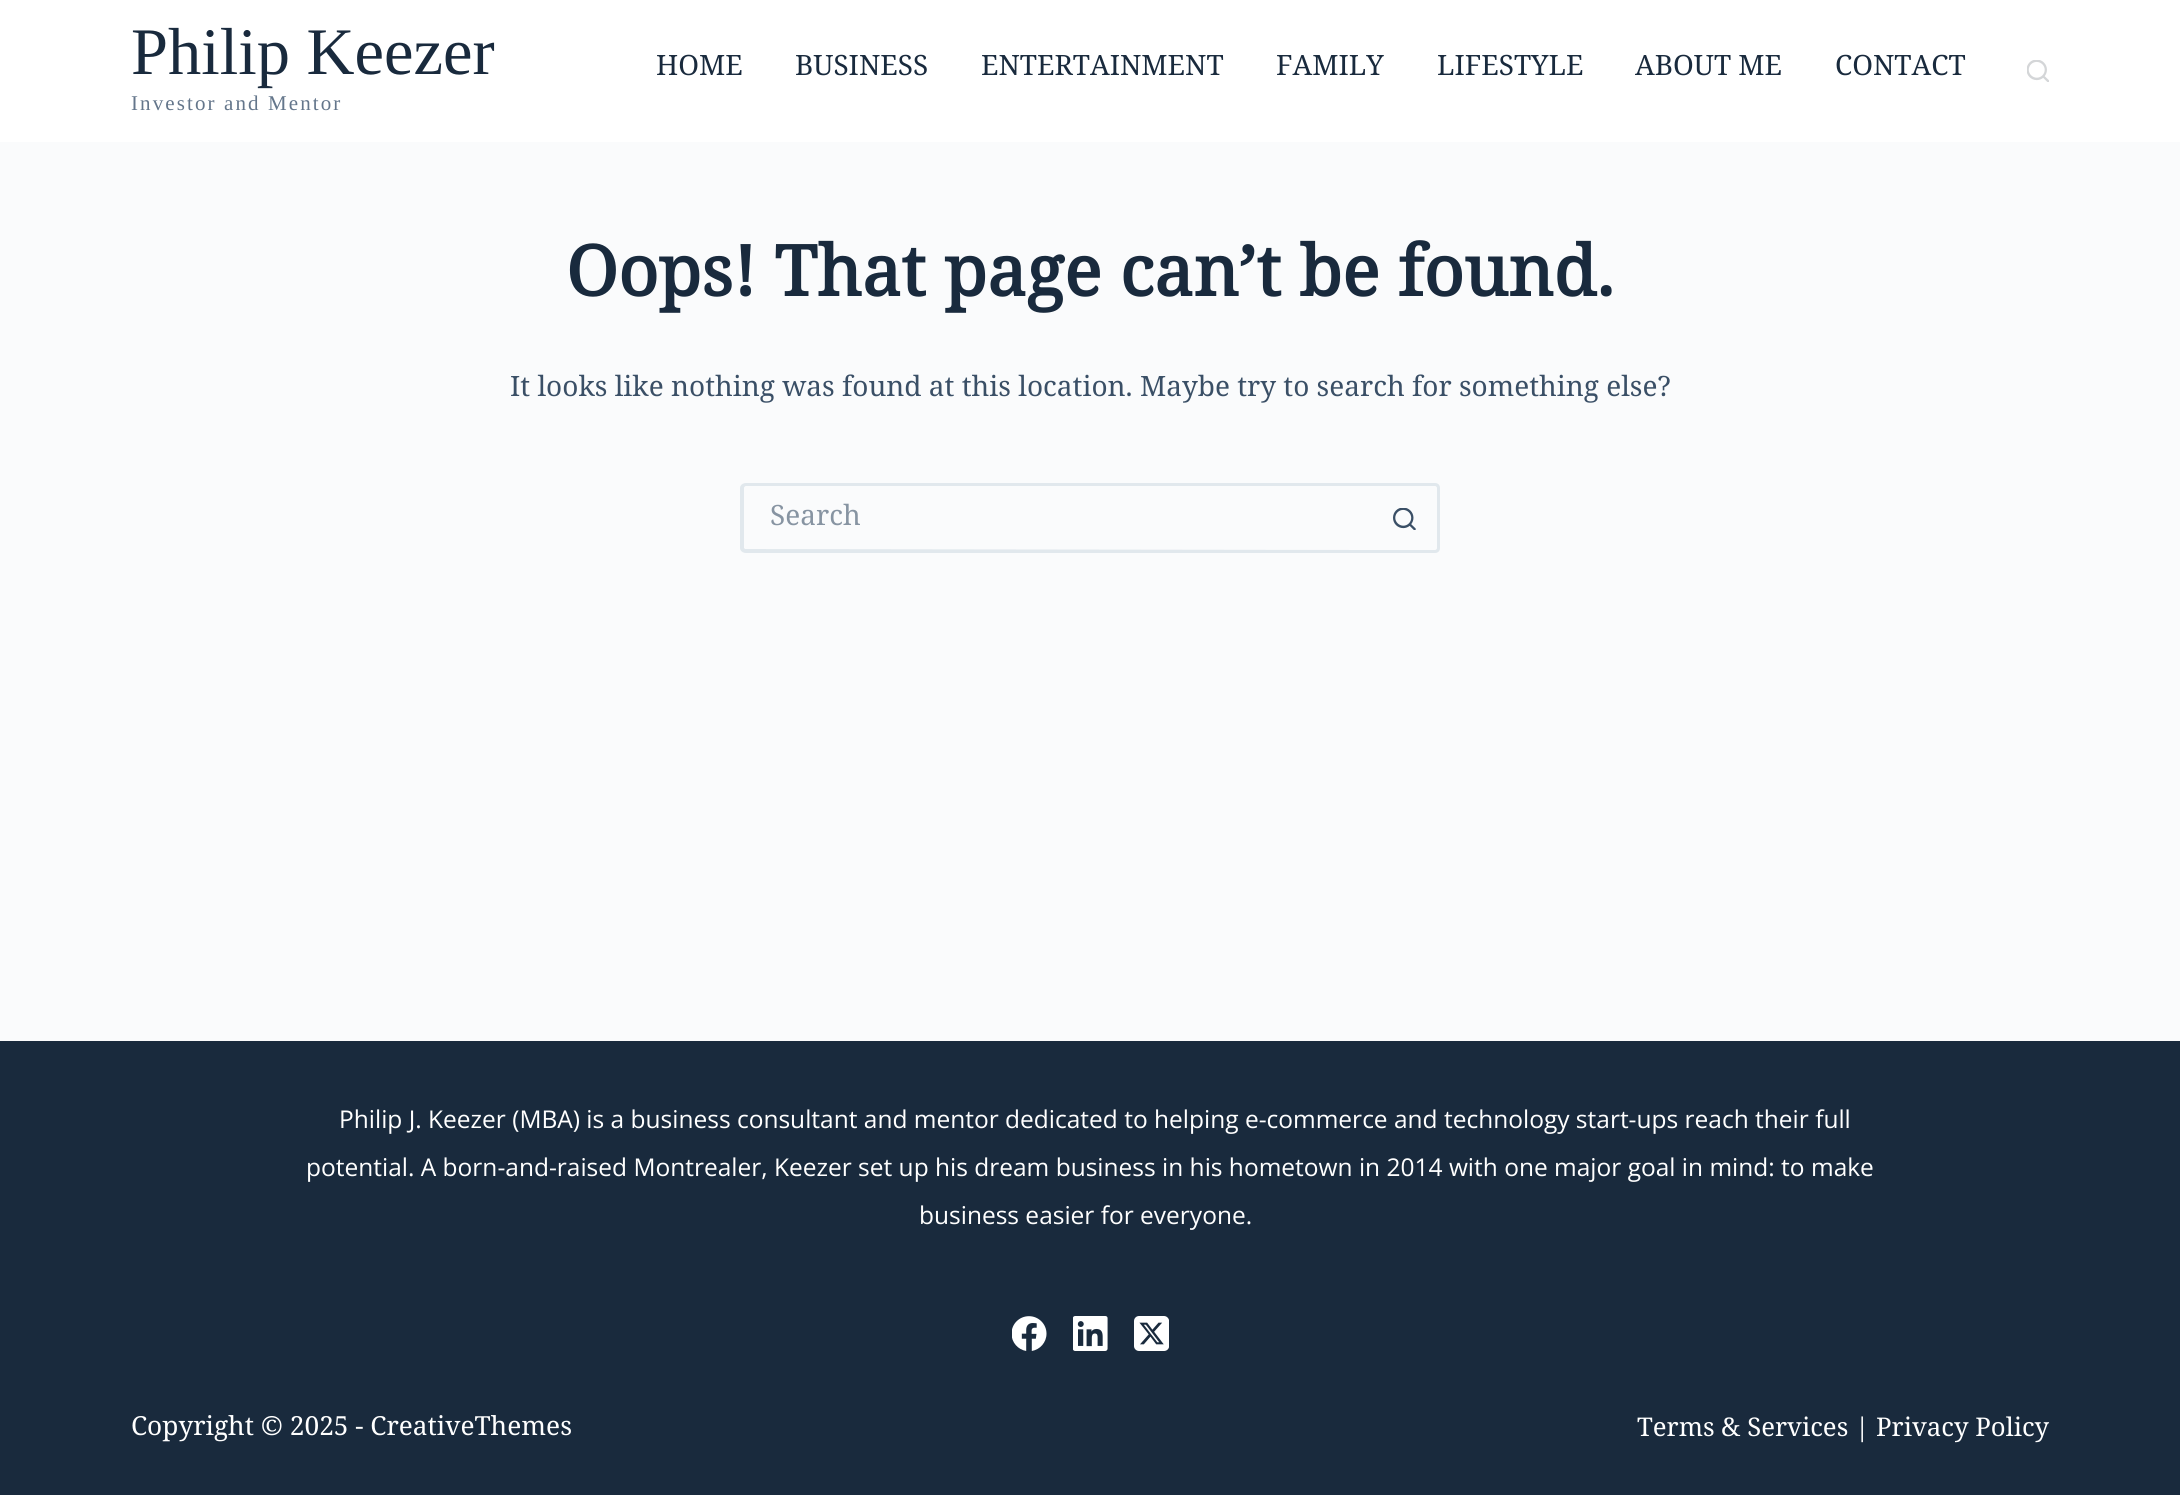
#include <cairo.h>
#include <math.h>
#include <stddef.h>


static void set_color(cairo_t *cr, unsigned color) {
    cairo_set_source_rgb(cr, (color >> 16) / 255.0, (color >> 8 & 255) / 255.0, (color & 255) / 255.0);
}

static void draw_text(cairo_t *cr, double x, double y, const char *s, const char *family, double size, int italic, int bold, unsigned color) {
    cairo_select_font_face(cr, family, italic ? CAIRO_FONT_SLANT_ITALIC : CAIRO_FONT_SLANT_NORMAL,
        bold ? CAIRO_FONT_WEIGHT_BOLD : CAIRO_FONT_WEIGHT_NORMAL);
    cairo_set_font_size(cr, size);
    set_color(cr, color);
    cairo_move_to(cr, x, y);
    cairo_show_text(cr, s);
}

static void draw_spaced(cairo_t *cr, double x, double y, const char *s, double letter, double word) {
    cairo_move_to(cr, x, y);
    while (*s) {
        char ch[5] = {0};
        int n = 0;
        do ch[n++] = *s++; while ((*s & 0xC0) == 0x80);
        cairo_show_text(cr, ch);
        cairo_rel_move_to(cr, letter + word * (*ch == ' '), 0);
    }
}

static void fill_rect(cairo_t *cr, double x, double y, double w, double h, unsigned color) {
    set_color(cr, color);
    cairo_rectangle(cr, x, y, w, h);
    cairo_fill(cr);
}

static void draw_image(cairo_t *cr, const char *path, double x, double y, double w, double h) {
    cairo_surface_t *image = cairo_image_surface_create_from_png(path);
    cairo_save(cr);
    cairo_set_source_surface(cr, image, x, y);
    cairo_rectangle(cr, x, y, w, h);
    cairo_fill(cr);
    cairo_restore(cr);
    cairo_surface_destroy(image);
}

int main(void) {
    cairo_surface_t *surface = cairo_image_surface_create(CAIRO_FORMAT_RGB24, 2180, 1495);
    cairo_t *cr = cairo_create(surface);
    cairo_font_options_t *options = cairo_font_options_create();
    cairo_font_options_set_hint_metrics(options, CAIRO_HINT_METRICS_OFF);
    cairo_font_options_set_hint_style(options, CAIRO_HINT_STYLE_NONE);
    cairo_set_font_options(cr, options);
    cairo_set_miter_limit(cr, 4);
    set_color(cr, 0xFAFBFC);
    cairo_paint(cr);
    fill_rect(cr, 0, 0, 2180, 142, 0xFFFFFF);
    draw_text(cr, 131, 74, "Philip Keezer", "Liberation Serif", 66.5, 0, 0, 0x192A3D);
    cairo_set_font_size(cr, 21);
    set_color(cr, 0x64768B);
    draw_spaced(cr, 131, 110, "Investor and Mentor", 2.1, 0);
    draw_text(cr, 656, 75, "HOME", "Noto Serif Ottoman Siyaq", 28, 0, 0, 0x192A3D);
    draw_text(cr, 795, 75, "BUSINESS", "Noto Serif Ottoman Siyaq", 28, 0, 0, 0x192A3D);
    draw_text(cr, 981, 75, "ENTERTAINMENT", "Noto Serif Ottoman Siyaq", 28, 0, 0, 0x192A3D);
    draw_text(cr, 1276, 75, "FAMILY", "Noto Serif Ottoman Siyaq", 28, 0, 0, 0x192A3D);
    draw_text(cr, 1437, 75, "LIFESTYLE", "Noto Serif Ottoman Siyaq", 28, 0, 0, 0x192A3D);
    draw_text(cr, 1635, 75, "ABOUT ME", "Noto Serif Ottoman Siyaq", 28, 0, 0, 0x192A3D);
    draw_text(cr, 1835, 75, "CONTACT", "Noto Serif Ottoman Siyaq", 28, 0, 0, 0x192A3D);
    draw_image(cr, "assets/img1.png", 2027, 60, 22, 22);
    draw_text(cr, 566, 296, "Oops! That page can’t be found.", "Noto Serif Ottoman Siyaq", 70, 0, 1, 0x192A3D);
    draw_text(cr, 510, 396, "It looks like nothing was found at this location. Maybe try to search for something else?", "Noto Serif Ottoman Siyaq", 28, 0, 0, 0x3A4F66);
    set_color(cr, 0xE1E8ED);
    cairo_set_fill_rule(cr, CAIRO_FILL_RULE_EVEN_ODD);
    cairo_new_path(cr);
    cairo_move_to(cr, 746, 483);
    cairo_line_to(cr, 1370, 483);
    cairo_line_to(cr, 1370, 553);
    cairo_line_to(cr, 746, 553);
    cairo_curve_to(cr, 743, 553, 740, 551, 740, 548);
    cairo_line_to(cr, 740, 488);
    cairo_curve_to(cr, 740, 485, 743, 483, 746, 483);
    cairo_close_path(cr);
    cairo_move_to(cr, 746, 486);
    cairo_line_to(cr, 1370, 486);
    cairo_line_to(cr, 1370, 550);
    cairo_line_to(cr, 745, 549);
    cairo_line_to(cr, 744, 548);
    cairo_line_to(cr, 744, 488);
    cairo_curve_to(cr, 744, 487, 745, 486, 746, 486);
    cairo_close_path(cr);
    cairo_fill(cr);
    draw_text(cr, 770, 525, "Search", "Noto Serif Ottoman Siyaq", 28, 0, 0, 0x8794A2);
    set_color(cr, 0xE1E8ED);
    cairo_new_path(cr);
    cairo_move_to(cr, 1370, 483);
    cairo_line_to(cr, 1435, 483);
    cairo_curve_to(cr, 1438, 483, 1440, 485, 1440, 488);
    cairo_line_to(cr, 1440, 548);
    cairo_curve_to(cr, 1440, 551, 1438, 553, 1435, 553);
    cairo_line_to(cr, 1370, 553);
    cairo_close_path(cr);
    cairo_move_to(cr, 1370, 486);
    cairo_line_to(cr, 1435, 486);
    cairo_curve_to(cr, 1436, 486, 1437, 487, 1437, 488);
    cairo_line_to(cr, 1437, 548);
    cairo_curve_to(cr, 1437, 549, 1436, 550, 1435, 550);
    cairo_line_to(cr, 1370, 550);
    cairo_close_path(cr);
    cairo_fill(cr);
    draw_image(cr, "assets/img2.png", 1393, 508, 23, 22);
    fill_rect(cr, 0, 1041, 2180, 454, 0x192A3D);
    draw_text(cr, 339, 1128, "Philip J. Keezer (MBA) is a business consultant and mentor dedicated to helping e-commerce and technology start-ups reach their full", "Open Sans", 24.5, 0, 0, 0xFFFFFF);
    draw_text(cr, 306, 1176, "potential. A born-and-raised Montrealer, Keezer set up his dream business in his hometown in 2014 with one major goal in mind: to make", "Open Sans", 24.5, 0, 0, 0xFFFFFF);
    draw_text(cr, 919, 1224, "business easier for everyone.", "Open Sans", 24.5, 0, 0, 0xFFFFFF);
    draw_image(cr, "assets/img3.png", 1012, 1316, 35, 35);
    draw_image(cr, "assets/img4.png", 1073, 1316, 35, 35);
    draw_image(cr, "assets/img5.png", 1134, 1316, 35, 35);
    draw_text(cr, 131, 1435, "Copyright © 2025 - CreativeThemes", "Noto Serif Ottoman Siyaq", 26.25, 0, 0, 0xFFFFFF);
    draw_text(cr, 1637, 1436, "Terms & Services | Privacy Policy", "Noto Serif Ottoman Siyaq", 25.75, 0, 0, 0xFFFFFF);
    cairo_surface_write_to_png(surface, "output.png");
    cairo_font_options_destroy(options);
    cairo_destroy(cr);
    cairo_surface_destroy(surface);
    return 0;
}
